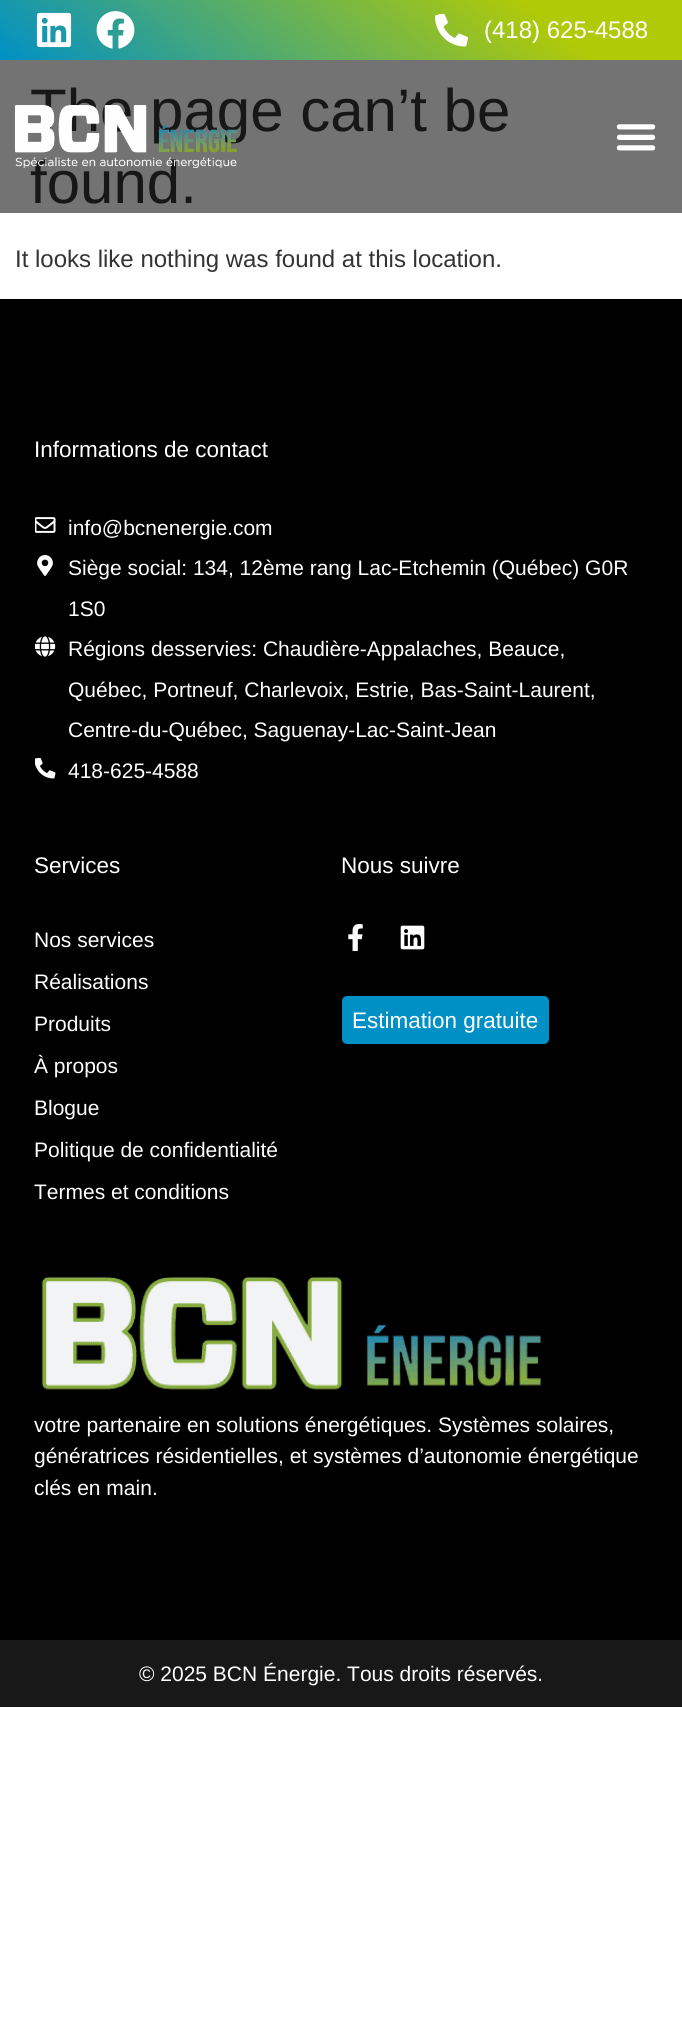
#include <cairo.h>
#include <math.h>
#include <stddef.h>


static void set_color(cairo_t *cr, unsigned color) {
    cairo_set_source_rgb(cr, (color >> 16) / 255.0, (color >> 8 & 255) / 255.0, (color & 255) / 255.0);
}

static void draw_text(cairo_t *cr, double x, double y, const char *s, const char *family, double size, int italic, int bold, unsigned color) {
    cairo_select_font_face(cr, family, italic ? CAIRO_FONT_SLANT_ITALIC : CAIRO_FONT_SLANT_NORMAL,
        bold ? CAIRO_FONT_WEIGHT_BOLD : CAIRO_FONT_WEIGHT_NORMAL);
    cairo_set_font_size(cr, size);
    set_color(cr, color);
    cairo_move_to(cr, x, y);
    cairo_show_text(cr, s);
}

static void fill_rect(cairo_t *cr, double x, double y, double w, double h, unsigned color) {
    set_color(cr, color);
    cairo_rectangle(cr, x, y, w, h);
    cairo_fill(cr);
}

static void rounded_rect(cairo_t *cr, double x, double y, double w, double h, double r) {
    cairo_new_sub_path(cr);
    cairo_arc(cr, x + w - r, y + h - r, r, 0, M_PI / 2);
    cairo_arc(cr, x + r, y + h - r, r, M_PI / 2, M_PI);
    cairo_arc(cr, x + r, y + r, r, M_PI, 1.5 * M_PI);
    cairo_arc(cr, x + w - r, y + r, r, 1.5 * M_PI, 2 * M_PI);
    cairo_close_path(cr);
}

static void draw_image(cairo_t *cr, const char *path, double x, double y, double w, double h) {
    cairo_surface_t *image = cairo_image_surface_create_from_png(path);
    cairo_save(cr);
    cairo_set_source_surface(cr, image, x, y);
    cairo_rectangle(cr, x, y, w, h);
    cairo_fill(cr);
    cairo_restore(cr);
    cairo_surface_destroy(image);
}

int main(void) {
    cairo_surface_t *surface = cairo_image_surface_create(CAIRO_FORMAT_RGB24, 682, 2030);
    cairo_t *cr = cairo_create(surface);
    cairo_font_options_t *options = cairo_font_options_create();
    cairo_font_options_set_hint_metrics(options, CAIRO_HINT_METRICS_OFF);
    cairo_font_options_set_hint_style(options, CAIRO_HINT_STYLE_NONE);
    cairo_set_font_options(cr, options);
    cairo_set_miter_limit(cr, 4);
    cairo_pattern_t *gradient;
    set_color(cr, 0xFFFFFF);
    cairo_paint(cr);
    fill_rect(cr, 0, 60, 682, 153, 0x737373);
    gradient = cairo_pattern_create_linear(191, 215, 491, -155);
    cairo_pattern_add_color_stop_rgba(gradient, 0, 0, 0.565, 0.776, 1);
    cairo_pattern_add_color_stop_rgba(gradient, 0.79, 0.694, 0.792, 0.027, 1);
    cairo_set_source(cr, gradient);
    cairo_pattern_destroy(gradient);
    cairo_rectangle(cr, 0, 0, 682, 60);
    cairo_fill(cr);
    draw_image(cr, "assets/img1.png", 36, 12, 36, 36);
    draw_image(cr, "assets/img2.png", 96, 11, 39, 38);
    draw_image(cr, "assets/img3.png", 435, 14, 33, 33);
    draw_text(cr, 484, 38, "(418) 625-4588", "Liberation Sans", 24, 0, 0, 0xFFFFFF);
    draw_text(cr, 30, 131, "The page can’t be", "Liberation Sans", 60, 0, 0, 0x171717);
    draw_text(cr, 30, 203, "found.", "Liberation Sans", 60, 0, 0, 0x171717);
    draw_image(cr, "assets/img4.png", 15, 105, 222, 63);
    draw_image(cr, "assets/img5.png", 616, 124, 40, 27);
    draw_text(cr, 15, 267, "It looks like nothing was found at this location.", "Liberation Sans", 24, 0, 0, 0x333333);
    fill_rect(cr, 0, 299, 682, 1341, 0x000000);
    draw_text(cr, 34, 457, "Informations de contact", "Liberation Sans", 22.5, 0, 0, 0xFFFFFF);
    draw_image(cr, "assets/img6.png", 35, 517, 21, 16);
    draw_text(cr, 68, 535, "info@bcnenergie.com", "Liberation Sans", 21, 0, 0, 0xFFFFFF);
    draw_image(cr, "assets/img7.png", 37, 555, 16, 21);
    draw_text(cr, 68, 575, "Siège social: 134, 12ème rang Lac-Etchemin (Québec) G0R", "Liberation Sans", 21, 0, 0, 0xFFFFFF);
    draw_text(cr, 68, 616, "1S0", "Liberation Sans", 21, 0, 0, 0xFFFFFF);
    draw_image(cr, "assets/img8.png", 35, 636, 21, 21);
    draw_text(cr, 68, 656, "Régions desservies: Chaudière-Appalaches, Beauce,", "Liberation Sans", 21, 0, 0, 0xFFFFFF);
    draw_text(cr, 68, 697, "Québec, Portneuf, Charlevoix, Estrie, Bas-Saint-Laurent,", "Liberation Sans", 21, 0, 0, 0xFFFFFF);
    draw_text(cr, 68, 737, "Centre-du-Québec, Saguenay-Lac-Saint-Jean", "Liberation Sans", 21, 0, 0, 0xFFFFFF);
    draw_image(cr, "assets/img9.png", 35, 758, 21, 21);
    draw_text(cr, 68, 778, "418-625-4588", "Liberation Sans", 21, 0, 0, 0xFFFFFF);
    draw_text(cr, 34, 873, "Services", "Liberation Sans", 22.5, 0, 0, 0xFFFFFF);
    draw_text(cr, 34, 947, "Nos services", "Liberation Sans", 21, 0, 0, 0xFFFFFF);
    draw_text(cr, 34, 989, "Réalisations", "Liberation Sans", 21, 0, 0, 0xFFFFFF);
    draw_text(cr, 34, 1031, "Produits", "Liberation Sans", 21, 0, 0, 0xFFFFFF);
    draw_text(cr, 34, 1073, "À propos", "Liberation Sans", 21, 0, 0, 0xFFFFFF);
    draw_text(cr, 34, 1115, "Blogue", "Liberation Sans", 21, 0, 0, 0xFFFFFF);
    draw_text(cr, 34, 1157, "Politique de confidentialité", "Liberation Sans", 21, 0, 0, 0xFFFFFF);
    draw_text(cr, 34, 1199, "Termes et conditions", "Liberation Sans", 21, 0, 0, 0xFFFFFF);
    draw_text(cr, 341, 873, "Nous suivre", "Liberation Sans", 22.5, 0, 0, 0xFFFFFF);
    draw_image(cr, "assets/img10.png", 348, 924, 15, 27);
    draw_image(cr, "assets/img11.png", 400, 925, 25, 25);
    set_color(cr, 0x0090C6);
    rounded_rect(cr, 343, 997, 205, 46, 4);
    cairo_fill_preserve(cr);
    cairo_stroke(cr);
    draw_text(cr, 352, 1028, "Estimation gratuite", "Liberation Sans", 22.5, 0, 0, 0xFFFFFF);
    draw_image(cr, "assets/img12.png", 41, 1276, 501, 114);
    draw_text(cr, 34, 1432, "votre partenaire en solutions énergétiques. Systèmes solaires,", "Liberation Sans", 21, 0, 0, 0xFFFFFF);
    draw_text(cr, 34, 1463, "génératrices résidentielles, et systèmes d’autonomie énergétique", "Liberation Sans", 21, 0, 0, 0xFFFFFF);
    draw_text(cr, 34, 1495, "clés en main.", "Liberation Sans", 21, 0, 0, 0xFFFFFF);
    fill_rect(cr, 0, 1640, 682, 67, 0x181818);
    draw_text(cr, 139, 1681, "© 2025 BCN Énergie. Tous droits réservés.", "Liberation Sans", 21, 0, 0, 0xFFFFFF);
    cairo_surface_write_to_png(surface, "output.png");
    cairo_font_options_destroy(options);
    cairo_destroy(cr);
    cairo_surface_destroy(surface);
    return 0;
}
